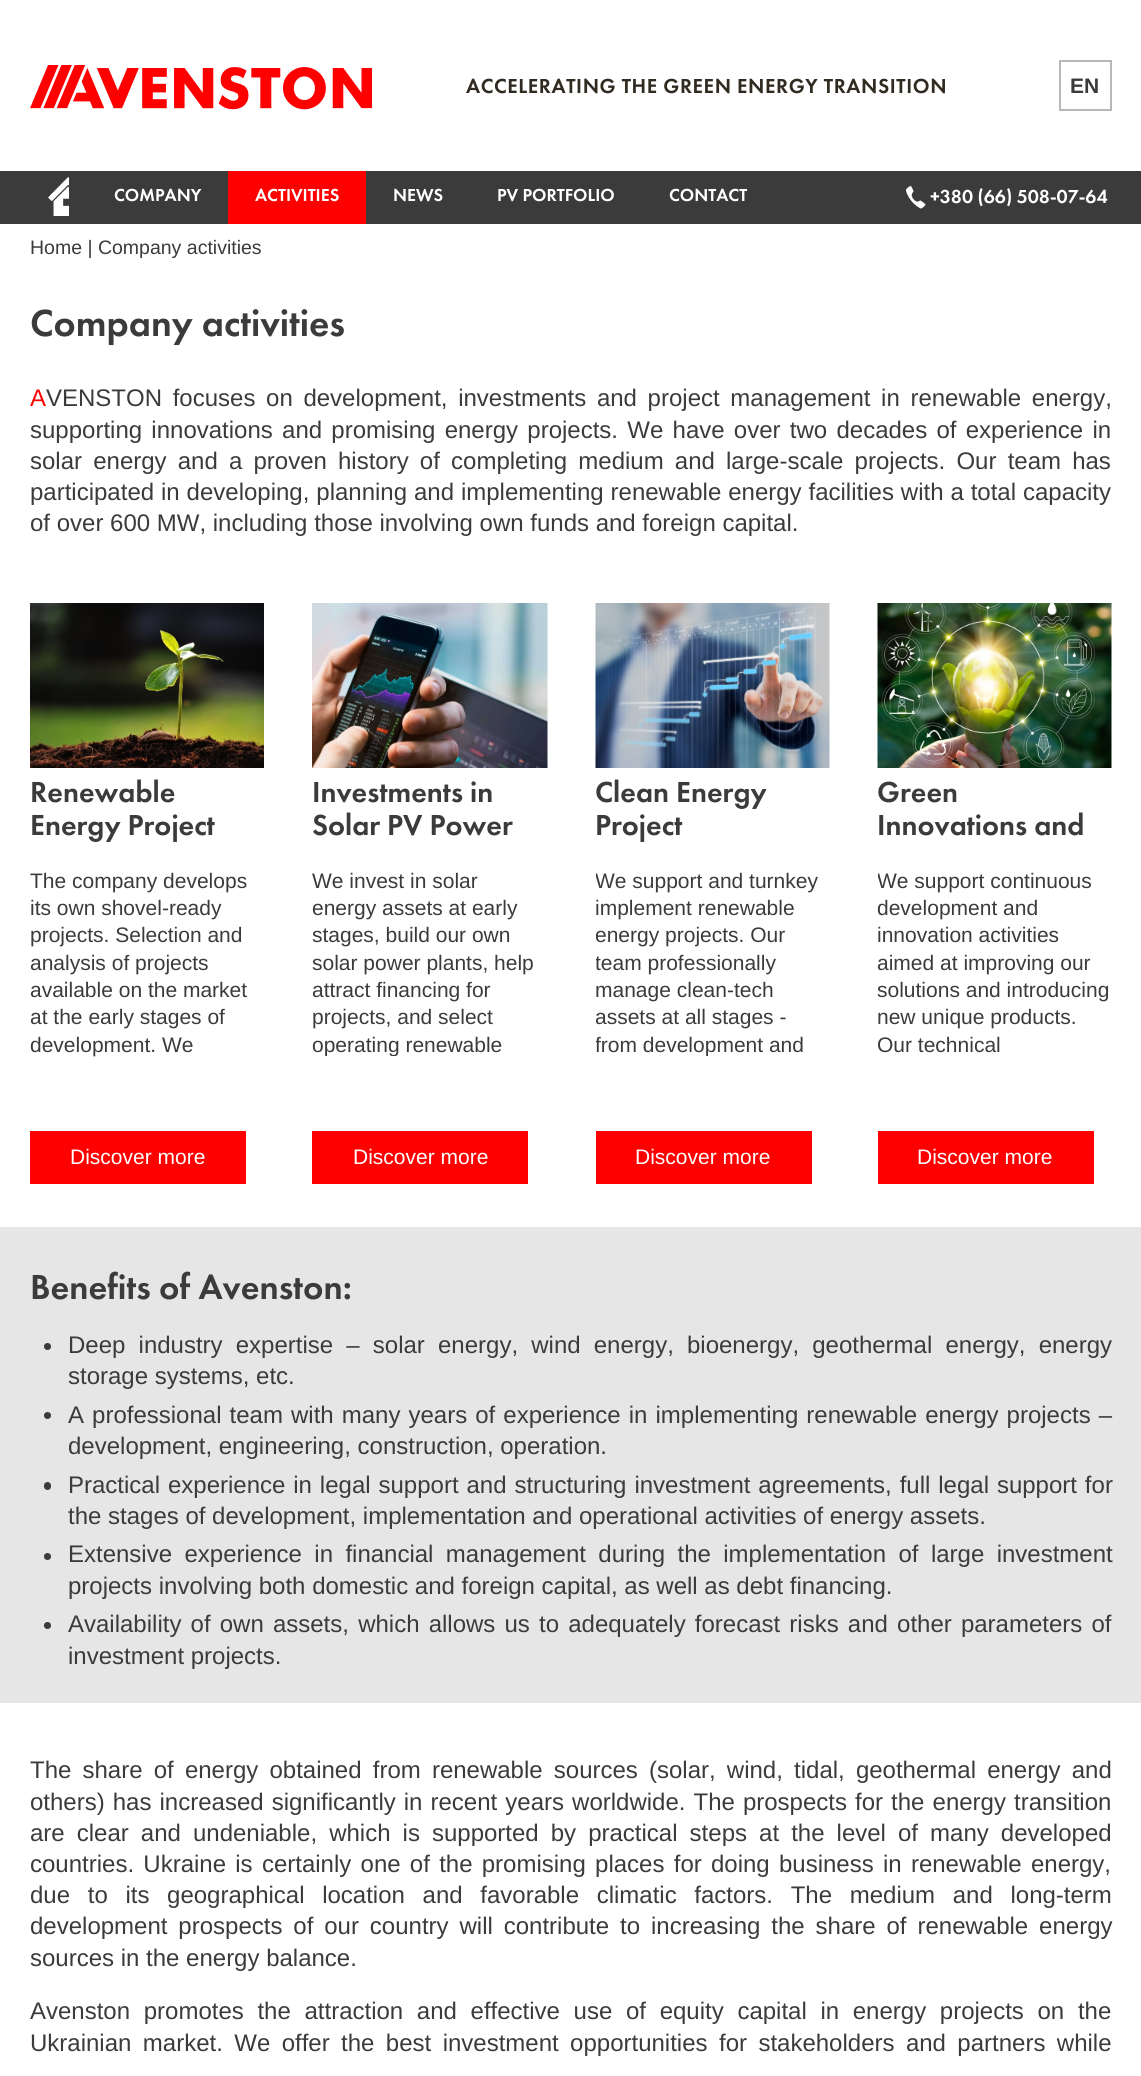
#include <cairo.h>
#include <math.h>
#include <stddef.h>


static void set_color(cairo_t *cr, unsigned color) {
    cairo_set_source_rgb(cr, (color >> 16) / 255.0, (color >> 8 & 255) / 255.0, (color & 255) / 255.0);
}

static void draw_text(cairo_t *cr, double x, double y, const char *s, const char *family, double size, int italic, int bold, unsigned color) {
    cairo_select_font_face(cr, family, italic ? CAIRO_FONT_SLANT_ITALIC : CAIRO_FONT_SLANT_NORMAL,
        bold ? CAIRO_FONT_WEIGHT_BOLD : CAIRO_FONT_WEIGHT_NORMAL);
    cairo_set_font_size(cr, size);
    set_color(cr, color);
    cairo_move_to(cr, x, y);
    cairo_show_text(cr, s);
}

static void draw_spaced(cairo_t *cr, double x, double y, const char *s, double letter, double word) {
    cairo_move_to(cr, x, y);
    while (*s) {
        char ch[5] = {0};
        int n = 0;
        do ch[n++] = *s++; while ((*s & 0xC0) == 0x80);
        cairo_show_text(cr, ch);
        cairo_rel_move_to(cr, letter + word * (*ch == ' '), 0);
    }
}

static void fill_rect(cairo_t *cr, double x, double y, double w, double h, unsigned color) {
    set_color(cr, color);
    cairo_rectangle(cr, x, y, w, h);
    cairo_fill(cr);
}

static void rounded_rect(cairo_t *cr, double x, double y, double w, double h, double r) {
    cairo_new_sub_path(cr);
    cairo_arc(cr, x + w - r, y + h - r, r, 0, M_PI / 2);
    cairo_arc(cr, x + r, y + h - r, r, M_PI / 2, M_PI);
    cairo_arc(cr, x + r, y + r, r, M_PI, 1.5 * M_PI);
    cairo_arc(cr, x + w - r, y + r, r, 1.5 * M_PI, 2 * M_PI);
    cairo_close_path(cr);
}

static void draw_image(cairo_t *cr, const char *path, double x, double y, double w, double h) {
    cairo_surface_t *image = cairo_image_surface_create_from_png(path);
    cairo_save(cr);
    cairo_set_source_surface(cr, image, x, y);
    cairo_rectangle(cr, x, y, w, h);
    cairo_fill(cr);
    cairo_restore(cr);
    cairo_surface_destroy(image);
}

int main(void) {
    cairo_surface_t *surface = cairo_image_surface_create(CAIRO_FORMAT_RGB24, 1141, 2076);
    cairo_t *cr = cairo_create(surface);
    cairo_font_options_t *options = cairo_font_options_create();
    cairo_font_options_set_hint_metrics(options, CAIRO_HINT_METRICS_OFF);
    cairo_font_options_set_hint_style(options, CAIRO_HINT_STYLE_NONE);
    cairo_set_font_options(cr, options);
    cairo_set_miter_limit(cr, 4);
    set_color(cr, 0xFFFFFF);
    cairo_paint(cr);
    draw_image(cr, "assets/img1.png", 30, 65, 342, 45);
    cairo_select_font_face(cr, "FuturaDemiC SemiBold", CAIRO_FONT_SLANT_NORMAL, CAIRO_FONT_WEIGHT_NORMAL);
    cairo_set_font_size(cr, 21);
    set_color(cr, 0x312A20);
    draw_spaced(cr, 466, 93, "ACCELERATING THE GREEN ENERGY TRANSITION", 0.6, 0);
    cairo_rectangle(cr, 1060, 61, 51, 49);
    set_color(cr, 0xB8B8B8);
    cairo_stroke(cr);
    draw_text(cr, 1070, 93, "EN", "Liberation Sans", 21, 0, 1, 0x3B3B3B);
    fill_rect(cr, 0, 171, 1141, 53, 0x3B3B3B);
    draw_image(cr, "assets/img2.png", 48, 177, 21, 39);
    draw_text(cr, 114, 201, "СOMPANY", "FuturaDemiC SemiBold", 18, 0, 0, 0xFFFFFF);
    fill_rect(cr, 228, 171, 138, 53, 0xFF0000);
    draw_text(cr, 255, 201, "ACTIVITIES", "FuturaDemiC SemiBold", 18, 0, 0, 0xFFFFFF);
    draw_text(cr, 393, 201, "NEWS", "FuturaDemiC SemiBold", 18, 0, 0, 0xFFFFFF);
    draw_text(cr, 497, 201, "PV PORTFOLIO", "FuturaDemiC SemiBold", 18, 0, 0, 0xFFFFFF);
    draw_text(cr, 669, 201, "CONTACT", "FuturaDemiC SemiBold", 18, 0, 0, 0xFFFFFF);
    draw_image(cr, "assets/img3.png", 906, 186, 20, 23);
    draw_text(cr, 930, 203, "+380 (66) 508-07-64", "FuturaDemiC SemiBold", 19.5, 0, 0, 0xFFFFFF);
    draw_text(cr, 30, 254, "Home | Company activities", "Liberation Sans", 19.5, 0, 0, 0x3B3B3B);
    draw_text(cr, 30, 336, "Company activities", "FuturaDemiC SemiBold", 39, 0, 0, 0x3B3B3B);
    draw_text(cr, 30, 406, "A", "Liberation Sans", 24, 0, 0, 0xFF0000);
    set_color(cr, 0x3B3B3B);
    draw_spaced(cr, 46, 406, "VENSTON focuses on development, investments and project management in renewable energy,", 0, 4);
    draw_spaced(cr, 30, 438, "supporting innovations and promising energy projects. We have over two decades of experience in", 0, 2.6);
    draw_spaced(cr, 30, 469, "solar energy and a proven history of completing medium and large-scale projects. Our team has", 0, 4.5);
    draw_spaced(cr, 30, 500, "participated in developing, planning and implementing renewable energy facilities with a total capacity", 0, 0.25);
    draw_text(cr, 30, 531, "of over 600 MW, including those involving own funds and foreign capital.", "Liberation Sans", 24, 0, 0, 0x3B3B3B);
    draw_image(cr, "assets/img4.png", 30, 603, 234, 165);
    draw_text(cr, 30, 802, "Renewable", "FuturaDemiC SemiBold", 30, 0, 0, 0x3B3B3B);
    draw_text(cr, 30, 835, "Energy Project", "FuturaDemiC SemiBold", 30, 0, 0, 0x3B3B3B);
    draw_text(cr, 30, 888, "The company develops", "Liberation Sans", 21, 0, 0, 0x3B3B3B);
    draw_text(cr, 30, 915, "its own shovel-ready", "Liberation Sans", 21, 0, 0, 0x3B3B3B);
    draw_text(cr, 30, 942, "projects. Selection and", "Liberation Sans", 21, 0, 0, 0x3B3B3B);
    draw_text(cr, 30, 970, "analysis of projects", "Liberation Sans", 21, 0, 0, 0x3B3B3B);
    draw_text(cr, 30, 997, "available on the market", "Liberation Sans", 21, 0, 0, 0x3B3B3B);
    draw_text(cr, 30, 1024, "at the early stages of", "Liberation Sans", 21, 0, 0, 0x3B3B3B);
    draw_text(cr, 30, 1052, "development. We", "Liberation Sans", 21, 0, 0, 0x3B3B3B);
    fill_rect(cr, 30, 1131, 216, 53, 0xFF0000);
    draw_text(cr, 70, 1164, "Discover more", "Liberation Sans", 21, 0, 0, 0xFFFFFF);
    draw_image(cr, "assets/img5.png", 312, 603, 236, 165);
    draw_text(cr, 312, 802, "Investments in", "FuturaDemiC SemiBold", 30, 0, 0, 0x3B3B3B);
    draw_text(cr, 312, 835, "Solar PV Power", "FuturaDemiC SemiBold", 30, 0, 0, 0x3B3B3B);
    draw_text(cr, 312, 888, "We invest in solar", "Liberation Sans", 21, 0, 0, 0x3B3B3B);
    draw_text(cr, 312, 915, "energy assets at early", "Liberation Sans", 21, 0, 0, 0x3B3B3B);
    draw_text(cr, 312, 942, "stages, build our own", "Liberation Sans", 21, 0, 0, 0x3B3B3B);
    draw_text(cr, 312, 970, "solar power plants, help", "Liberation Sans", 21, 0, 0, 0x3B3B3B);
    draw_text(cr, 312, 997, "attract financing for", "Liberation Sans", 21, 0, 0, 0x3B3B3B);
    draw_text(cr, 312, 1024, "projects, and select", "Liberation Sans", 21, 0, 0, 0x3B3B3B);
    cairo_save(cr);
    cairo_rectangle(cr, 312, 867, 236, 189);
    cairo_clip(cr);
    draw_text(cr, 312, 1052, "operating renewable", "Liberation Sans", 21, 0, 0, 0x3B3B3B);
    cairo_restore(cr);
    fill_rect(cr, 312, 1131, 216, 53, 0xFF0000);
    draw_text(cr, 353, 1164, "Discover more", "Liberation Sans", 21, 0, 0, 0xFFFFFF);
    draw_image(cr, "assets/img6.png", 595, 603, 235, 165);
    draw_text(cr, 595, 802, "Clean Energy", "FuturaDemiC SemiBold", 30, 0, 0, 0x3B3B3B);
    draw_text(cr, 595, 835, "Project", "FuturaDemiC SemiBold", 30, 0, 0, 0x3B3B3B);
    cairo_save(cr);
    cairo_rectangle(cr, 596, 867, 234, 189);
    cairo_clip(cr);
    draw_text(cr, 595, 888, "We support and turnkey", "Liberation Sans", 21, 0, 0, 0x3B3B3B);
    cairo_restore(cr);
    draw_text(cr, 595, 915, "implement renewable", "Liberation Sans", 21, 0, 0, 0x3B3B3B);
    cairo_save(cr);
    cairo_rectangle(cr, 596, 867, 234, 189);
    cairo_clip(cr);
    draw_text(cr, 595, 942, "energy projects. Our", "Liberation Sans", 21, 0, 0, 0x3B3B3B);
    draw_text(cr, 595, 970, "team professionally", "Liberation Sans", 21, 0, 0, 0x3B3B3B);
    cairo_restore(cr);
    draw_text(cr, 595, 997, "manage clean-tech", "Liberation Sans", 21, 0, 0, 0x3B3B3B);
    cairo_save(cr);
    cairo_rectangle(cr, 596, 867, 234, 189);
    cairo_clip(cr);
    draw_text(cr, 595, 1024, "assets at all stages -", "Liberation Sans", 21, 0, 0, 0x3B3B3B);
    draw_text(cr, 595, 1052, "from development and", "Liberation Sans", 21, 0, 0, 0x3B3B3B);
    cairo_restore(cr);
    fill_rect(cr, 596, 1131, 216, 53, 0xFF0000);
    draw_text(cr, 635, 1164, "Discover more", "Liberation Sans", 21, 0, 0, 0xFFFFFF);
    draw_image(cr, "assets/img7.png", 877, 603, 235, 165);
    draw_text(cr, 877, 802, "Green", "FuturaDemiC SemiBold", 30, 0, 0, 0x3B3B3B);
    draw_text(cr, 877, 835, "Innovations and", "FuturaDemiC SemiBold", 30, 0, 0, 0x3B3B3B);
    cairo_save(cr);
    cairo_rectangle(cr, 878, 867, 234, 189);
    cairo_clip(cr);
    draw_text(cr, 877, 888, "We support continuous", "Liberation Sans", 21, 0, 0, 0x3B3B3B);
    cairo_restore(cr);
    draw_text(cr, 877, 915, "development and", "Liberation Sans", 21, 0, 0, 0x3B3B3B);
    draw_text(cr, 877, 942, "innovation activities", "Liberation Sans", 21, 0, 0, 0x3B3B3B);
    draw_text(cr, 877, 970, "aimed at improving our", "Liberation Sans", 21, 0, 0, 0x3B3B3B);
    draw_text(cr, 877, 997, "solutions and introducing", "Liberation Sans", 21, 0, 0, 0x3B3B3B);
    draw_text(cr, 877, 1024, "new unique products.", "Liberation Sans", 21, 0, 0, 0x3B3B3B);
    draw_text(cr, 877, 1052, "Our technical", "Liberation Sans", 21, 0, 0, 0x3B3B3B);
    fill_rect(cr, 878, 1131, 216, 53, 0xFF0000);
    draw_text(cr, 917, 1164, "Discover more", "Liberation Sans", 21, 0, 0, 0xFFFFFF);
    fill_rect(cr, 0, 1227, 1141, 476, 0xE6E6E6);
    draw_text(cr, 30, 1299, "Benefits of Avenston:", "FuturaDemiC SemiBold", 36, 0, 0, 0x3B3B3B);
    cairo_new_path(cr);
    cairo_arc(cr, 47.5, 1346.5, 3.5, 0, 2 * M_PI);
    cairo_fill(cr);
    cairo_select_font_face(cr, "Liberation Sans", CAIRO_FONT_SLANT_NORMAL, CAIRO_FONT_WEIGHT_NORMAL);
    cairo_set_font_size(cr, 24);
    draw_spaced(cr, 68, 1353, "Deep industry expertise – solar energy, wind energy, bioenergy, geothermal energy, energy", 0, 6.5);
    draw_text(cr, 68, 1384, "storage systems, etc.", "Liberation Sans", 24, 0, 0, 0x3B3B3B);
    cairo_new_path(cr);
    cairo_arc(cr, 47.5, 1415.5, 3.5, 0, 2 * M_PI);
    cairo_fill(cr);
    draw_spaced(cr, 68, 1423, "A professional team with many years of experience in implementing renewable energy projects –", 0, 1.4);
    draw_text(cr, 68, 1454, "development, engineering, construction, operation.", "Liberation Sans", 24, 0, 0, 0x3B3B3B);
    rounded_rect(cr, 44, 1482, 7, 8, 3.5);
    cairo_fill(cr);
    draw_spaced(cr, 68, 1493, "Practical experience in legal support and structuring investment agreements, full legal support for", 0, 1.25);
    draw_text(cr, 68, 1524, "the stages of development, implementation and operational activities of energy assets.", "Liberation Sans", 24, 0, 0, 0x3B3B3B);
    cairo_new_path(cr);
    cairo_arc(cr, 47.5, 1556.5, 3.5, 0, 2 * M_PI);
    cairo_fill(cr);
    draw_spaced(cr, 68, 1562, "Extensive experience in financial management during the implementation of large investment", 0, 5.75);
    draw_text(cr, 68, 1594, "projects involving both domestic and foreign capital, as well as debt financing.", "Liberation Sans", 24, 0, 0, 0x3B3B3B);
    cairo_new_path(cr);
    cairo_arc(cr, 47.5, 1625.5, 3.5, 0, 2 * M_PI);
    cairo_fill(cr);
    draw_spaced(cr, 68, 1632, "Availability of own assets, which allows us to adequately forecast risks and other parameters of", 0, 2.5);
    draw_text(cr, 68, 1664, "investment projects.", "Liberation Sans", 24, 0, 0, 0x3B3B3B);
    draw_spaced(cr, 30, 1778, "The share of energy obtained from renewable sources (solar, wind, tidal, geothermal energy and", 0, 4.5);
    draw_spaced(cr, 30, 1810, "others) has increased significantly in recent years worldwide. The prospects for the energy transition", 0, 1.4);
    draw_spaced(cr, 30, 1841, "are clear and undeniable, which is supported by practical steps at the level of many developed", 0, 5.4);
    draw_spaced(cr, 30, 1872, "countries. Ukraine is certainly one of the promising places for doing business in renewable energy,", 0, 2.6);
    draw_spaced(cr, 30, 1903, "due to its geographical location and favorable climatic factors. The medium and long-term", 0, 11);
    draw_spaced(cr, 30, 1934, "development prospects of our country will contribute to increasing the share of renewable energy", 0, 4.25);
    draw_text(cr, 30, 1966, "sources in the energy balance.", "Liberation Sans", 24, 0, 0, 0x3B3B3B);
    draw_spaced(cr, 30, 2019, "Avenston promotes the attraction and effective use of equity capital in energy projects on the", 0, 7);
    draw_spaced(cr, 30, 2051, "Ukrainian market. We offer the best investment opportunities for stakeholders and partners while", 0, 4.75);
    cairo_surface_write_to_png(surface, "output.png");
    cairo_font_options_destroy(options);
    cairo_destroy(cr);
    cairo_surface_destroy(surface);
    return 0;
}
